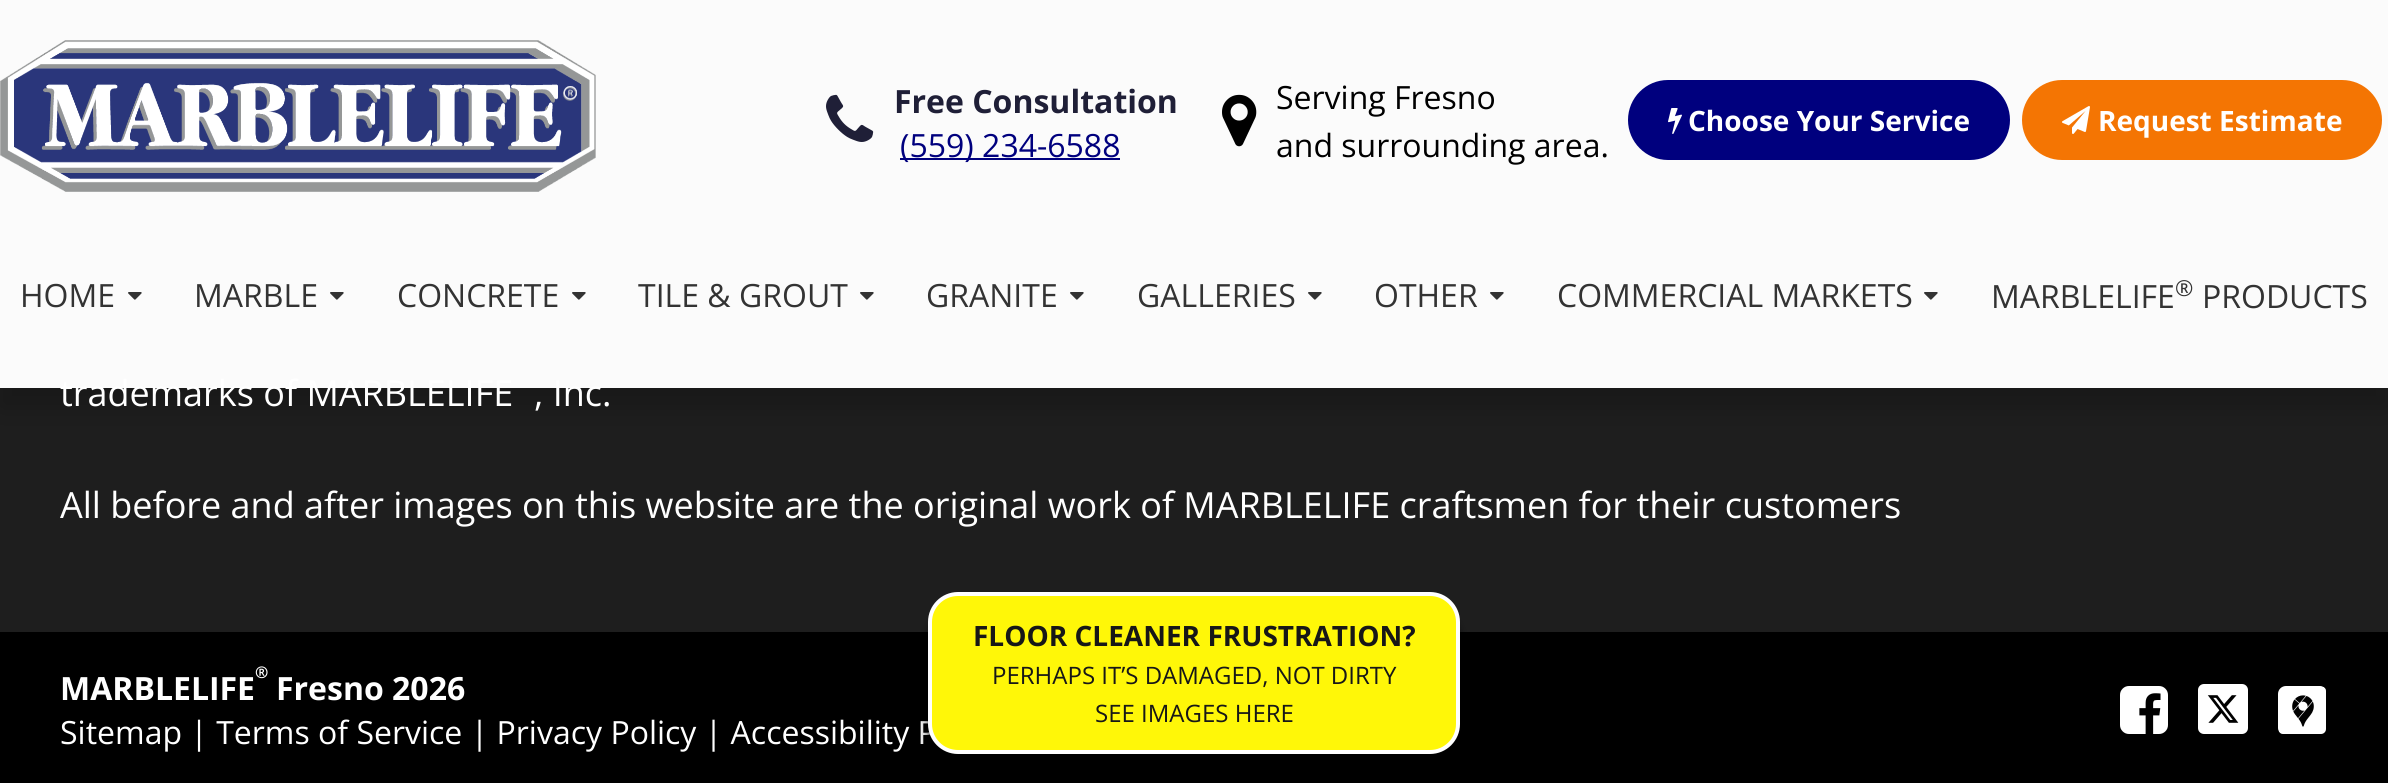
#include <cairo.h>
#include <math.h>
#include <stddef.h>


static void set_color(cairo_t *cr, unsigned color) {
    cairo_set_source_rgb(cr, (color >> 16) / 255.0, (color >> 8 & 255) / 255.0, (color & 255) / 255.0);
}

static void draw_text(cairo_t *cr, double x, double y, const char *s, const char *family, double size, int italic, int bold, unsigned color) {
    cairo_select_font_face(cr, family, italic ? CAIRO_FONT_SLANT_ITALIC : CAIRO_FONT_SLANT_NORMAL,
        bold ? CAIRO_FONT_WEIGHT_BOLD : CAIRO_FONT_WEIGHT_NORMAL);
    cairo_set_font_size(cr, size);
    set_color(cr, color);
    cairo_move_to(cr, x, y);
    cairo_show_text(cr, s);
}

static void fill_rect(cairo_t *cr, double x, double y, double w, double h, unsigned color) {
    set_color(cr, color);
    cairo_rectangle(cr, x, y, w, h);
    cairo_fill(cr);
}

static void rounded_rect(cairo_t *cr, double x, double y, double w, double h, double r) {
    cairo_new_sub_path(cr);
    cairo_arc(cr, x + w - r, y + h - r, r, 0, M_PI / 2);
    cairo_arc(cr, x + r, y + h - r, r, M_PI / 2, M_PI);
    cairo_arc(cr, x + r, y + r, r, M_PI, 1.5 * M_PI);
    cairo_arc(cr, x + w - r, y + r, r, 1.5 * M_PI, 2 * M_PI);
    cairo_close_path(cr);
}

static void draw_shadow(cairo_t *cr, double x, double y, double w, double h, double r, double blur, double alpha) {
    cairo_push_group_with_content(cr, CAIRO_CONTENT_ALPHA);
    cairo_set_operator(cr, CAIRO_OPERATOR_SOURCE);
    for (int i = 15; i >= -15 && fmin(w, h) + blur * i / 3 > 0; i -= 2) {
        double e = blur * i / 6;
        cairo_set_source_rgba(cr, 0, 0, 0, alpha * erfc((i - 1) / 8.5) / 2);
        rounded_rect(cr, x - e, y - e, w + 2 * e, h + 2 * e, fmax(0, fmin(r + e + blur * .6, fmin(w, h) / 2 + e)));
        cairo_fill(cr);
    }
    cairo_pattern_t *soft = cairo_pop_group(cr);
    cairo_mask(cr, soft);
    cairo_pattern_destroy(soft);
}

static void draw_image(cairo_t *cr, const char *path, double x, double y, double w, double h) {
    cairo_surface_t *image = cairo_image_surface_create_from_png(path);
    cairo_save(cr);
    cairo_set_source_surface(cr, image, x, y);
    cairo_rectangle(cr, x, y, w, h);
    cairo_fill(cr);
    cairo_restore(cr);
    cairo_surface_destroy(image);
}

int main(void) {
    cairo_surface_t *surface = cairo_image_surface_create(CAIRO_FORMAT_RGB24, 2388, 783);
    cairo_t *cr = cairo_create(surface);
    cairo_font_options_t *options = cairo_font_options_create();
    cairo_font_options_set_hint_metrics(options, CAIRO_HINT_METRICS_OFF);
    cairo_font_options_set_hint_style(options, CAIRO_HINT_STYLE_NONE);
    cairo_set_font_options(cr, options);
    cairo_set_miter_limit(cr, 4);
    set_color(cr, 0x1E1E1E);
    cairo_paint(cr);
    cairo_save(cr);
    cairo_rectangle(cr, 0, 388, 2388, 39);
    cairo_clip(cr);
    set_color(cr, 0x000000);
    draw_shadow(cr, 0, 20, 2388, 388, 0, 15, 0.2);
    cairo_restore(cr);
    draw_text(cr, 60, 406, "trademarks of MARBLELIFE", "Open Sans", 36, 0, 0, 0xFFFFFF);
    draw_text(cr, 534, 406, ", Inc.", "Open Sans", 36, 0, 0, 0xFFFFFF);
    cairo_set_source_rgba(cr, 1, 1, 1, 0.98);
    cairo_rectangle(cr, 0, 0, 2388, 388);
    cairo_fill(cr);
    draw_image(cr, "assets/img1.png", 0, 40, 596, 152);
    draw_image(cr, "assets/img2.png", 826, 94, 48, 48);
    draw_text(cr, 894, 113, "Free Consultation", "Open Sans", 32, 0, 1, 0x1F1F37);
    fill_rect(cr, 900, 158, 220, 2, 0x00007E);
    draw_text(cr, 900, 157, "(559) 234-6588", "Open Sans", 32, 0, 0, 0x00007E);
    draw_image(cr, "assets/img3.png", 1222, 94, 35, 53);
    draw_text(cr, 1276, 109, "Serving Fresno", "Open Sans", 32, 0, 0, 0x000000);
    draw_text(cr, 1276, 157, "and surrounding area.", "Open Sans", 32, 0, 0, 0x000000);
    set_color(cr, 0x00007E);
    rounded_rect(cr, 1628, 80, 382, 80, 40);
    cairo_fill(cr);
    draw_image(cr, "assets/img4.png", 1668, 108, 14, 26);
    draw_text(cr, 1688, 131, "Choose Your Service", "Open Sans", 28, 0, 1, 0xFFFFFF);
    set_color(cr, 0xF47503);
    rounded_rect(cr, 2022, 80, 360, 80, 40);
    cairo_fill(cr);
    draw_image(cr, "assets/img5.png", 2062, 106, 28, 28);
    draw_text(cr, 2098, 131, "Request Estimate", "Open Sans", 28, 0, 1, 0xFFFFFF);
    draw_text(cr, 20, 307, "HOME", "Open Sans", 32, 0, 0, 0x333333);
    draw_image(cr, "assets/img6.png", 128, 292, 14, 8);
    draw_text(cr, 194, 307, "MARBLE", "Open Sans", 32, 0, 0, 0x333333);
    draw_image(cr, "assets/img6.png", 330, 292, 14, 8);
    draw_text(cr, 397, 307, "CONCRETE", "Open Sans", 32, 0, 0, 0x333333);
    draw_image(cr, "assets/img6.png", 572, 292, 14, 8);
    draw_text(cr, 638, 307, "TILE & GROUT", "Open Sans", 32, 0, 0, 0x333333);
    draw_image(cr, "assets/img6.png", 860, 292, 14, 8);
    draw_text(cr, 926, 307, "GRANITE", "Open Sans", 32, 0, 0, 0x333333);
    draw_image(cr, "assets/img6.png", 1070, 292, 14, 8);
    draw_text(cr, 1137, 307, "GALLERIES", "Open Sans", 32, 0, 0, 0x333333);
    draw_image(cr, "assets/img6.png", 1308, 292, 14, 8);
    draw_text(cr, 1374, 307, "OTHER", "Open Sans", 32, 0, 0, 0x333333);
    draw_image(cr, "assets/img6.png", 1490, 292, 14, 8);
    draw_text(cr, 1557, 307, "COMMERCIAL MARKETS", "Open Sans", 32, 0, 0, 0x333333);
    draw_image(cr, "assets/img6.png", 1924, 292, 14, 8);
    draw_text(cr, 1991, 308, "MARBLELIFE", "Open Sans", 32, 0, 0, 0x333333);
    draw_text(cr, 2175, 296, "®", "Open Sans", 22, 0, 0, 0x333333);
    draw_text(cr, 2202, 308, "PRODUCTS", "Open Sans", 32, 0, 0, 0x333333);
    draw_text(cr, 60, 518, "All before and after images on this website are the original work of MARBLELIFE craftsmen for their customers", "Open Sans", 36, 0, 0, 0xFFFFFF);
    fill_rect(cr, 0, 632, 2388, 151, 0x000000);
    draw_text(cr, 255, 678, "®", "Open Sans", 16, 0, 1, 0xFFFFFF);
    draw_text(cr, 60, 700, "MARBLELIFE", "Open Sans", 32, 0, 1, 0xFFFFFF);
    draw_text(cr, 276, 700, "Fresno 2026", "Open Sans", 32, 0, 1, 0xFFFFFF);
    draw_text(cr, 60, 744, "Sitemap | Terms of Service | Privacy Policy | Accessibility P", "Open Sans", 32, 0, 0, 0xFFFFFF);
    draw_image(cr, "assets/img7.png", 2120, 686, 48, 48);
    rounded_rect(cr, 2198, 684, 50, 50, 6);
    cairo_fill(cr);
    draw_image(cr, "assets/img8.png", 2278, 686, 48, 48);
    draw_image(cr, "assets/img9.png", 2207, 695, 32, 28);
    set_color(cr, 0x000000);
    draw_shadow(cr, 928, 612, 532, 162, 30, 5, 0.75);
    set_color(cr, 0xFFF708);
    rounded_rect(cr, 930, 594, 528, 158, 28);
    cairo_fill_preserve(cr);
    set_color(cr, 0xFFFFFF);
    cairo_set_line_width(cr, 4);
    cairo_stroke(cr);
    draw_text(cr, 973, 646, "FLOOR CLEANER FRUSTRATION?", "Open Sans", 28, 0, 1, 0x171717);
    draw_text(cr, 992, 684, "PERHAPS IT’S DAMAGED, NOT DIRTY", "Open Sans", 24, 0, 0, 0x171717);
    draw_text(cr, 1095, 722, "SEE IMAGES HERE", "Open Sans", 24, 0, 0, 0x171717);
    cairo_surface_write_to_png(surface, "output.png");
    cairo_font_options_destroy(options);
    cairo_destroy(cr);
    cairo_surface_destroy(surface);
    return 0;
}
